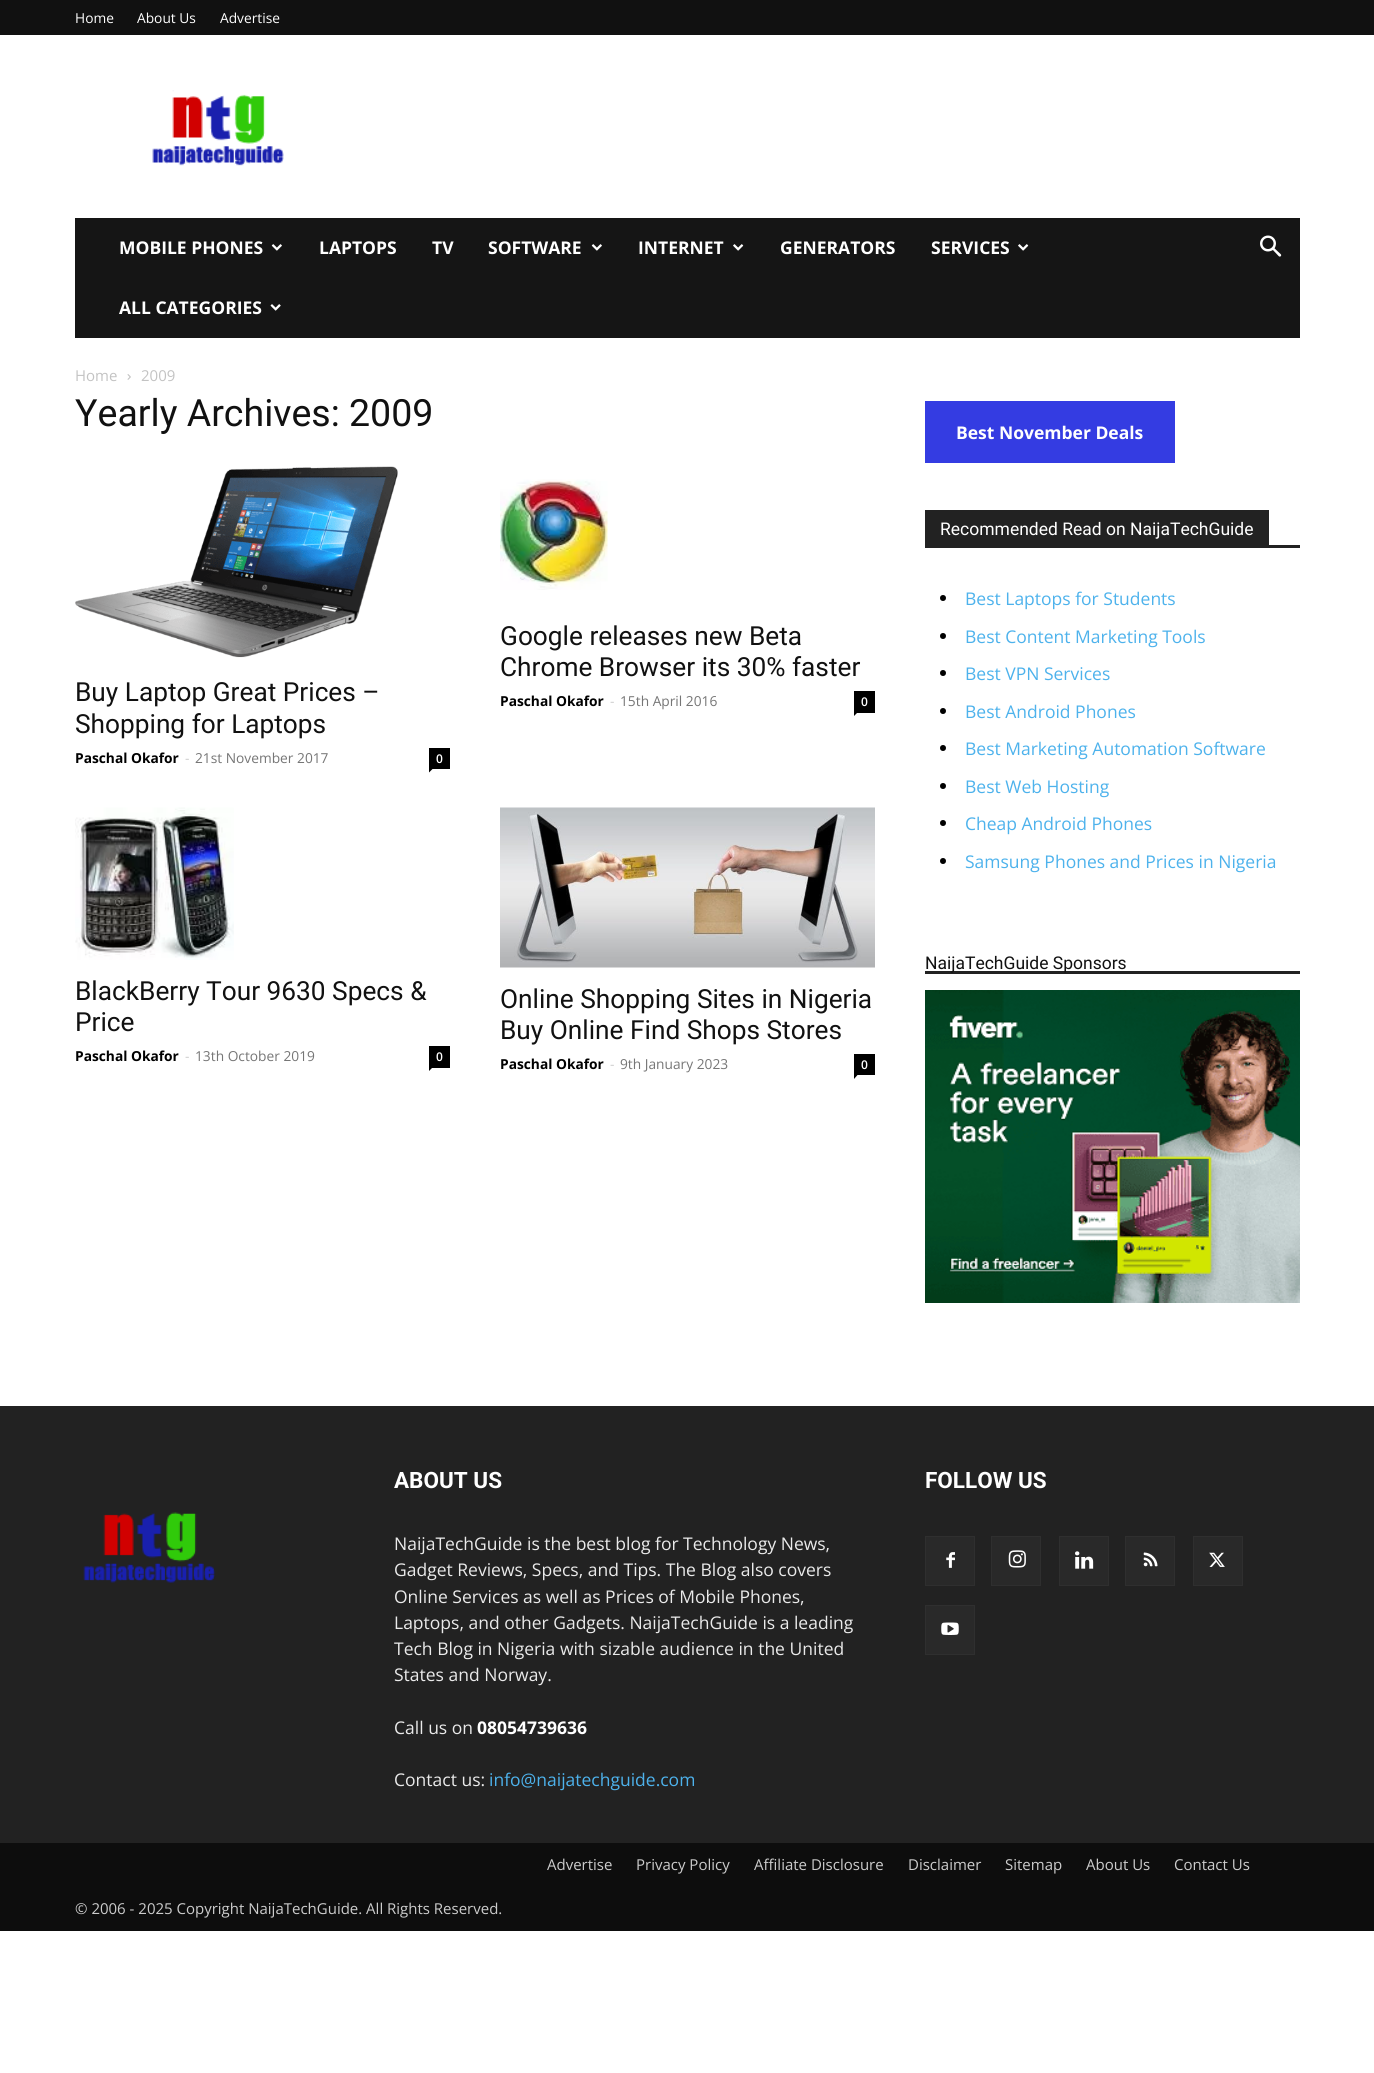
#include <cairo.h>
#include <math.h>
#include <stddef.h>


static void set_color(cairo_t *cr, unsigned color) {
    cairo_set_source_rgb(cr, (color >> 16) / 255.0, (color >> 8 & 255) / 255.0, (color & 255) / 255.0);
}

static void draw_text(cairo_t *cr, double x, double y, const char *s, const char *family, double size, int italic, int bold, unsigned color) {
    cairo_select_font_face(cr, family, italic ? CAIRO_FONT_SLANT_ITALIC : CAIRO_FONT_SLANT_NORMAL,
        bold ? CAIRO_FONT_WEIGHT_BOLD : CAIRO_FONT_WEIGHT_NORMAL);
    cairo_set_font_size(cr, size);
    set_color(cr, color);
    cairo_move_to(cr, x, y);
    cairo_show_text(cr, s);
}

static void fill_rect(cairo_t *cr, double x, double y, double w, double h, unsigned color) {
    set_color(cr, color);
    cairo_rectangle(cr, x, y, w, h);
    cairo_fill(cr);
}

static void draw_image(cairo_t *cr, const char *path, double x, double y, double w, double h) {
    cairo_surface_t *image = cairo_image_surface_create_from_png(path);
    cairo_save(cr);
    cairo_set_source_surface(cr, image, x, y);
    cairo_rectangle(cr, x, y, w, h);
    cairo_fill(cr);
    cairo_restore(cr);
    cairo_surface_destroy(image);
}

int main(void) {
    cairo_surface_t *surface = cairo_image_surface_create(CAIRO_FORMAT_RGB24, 1374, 2073);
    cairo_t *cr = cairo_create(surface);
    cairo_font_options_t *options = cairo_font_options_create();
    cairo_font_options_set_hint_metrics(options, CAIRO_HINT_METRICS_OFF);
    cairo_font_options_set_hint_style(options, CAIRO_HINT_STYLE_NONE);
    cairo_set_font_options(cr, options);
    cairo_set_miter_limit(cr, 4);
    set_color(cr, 0xFFFFFF);
    cairo_paint(cr);
    fill_rect(cr, 0, 0, 1374, 35, 0x111111);
    draw_text(cr, 75, 23, "Home", "Open Sans", 13.75, 0, 0, 0xFFFFFF);
    draw_text(cr, 137, 23, "About Us", "Open Sans", 13.75, 0, 0, 0xFFFFFF);
    draw_text(cr, 220, 23, "Advertise", "Open Sans", 13.75, 0, 0, 0xFFFFFF);
    draw_image(cr, "assets/img1.png", 152, 90, 132, 76);
    fill_rect(cr, 75, 218, 1225, 120, 0x151515);
    draw_text(cr, 119, 254, "MOBILE PHONES", "Open Sans", 17.5, 0, 1, 0xFFFFFF);
    draw_image(cr, "assets/img2.png", 271, 244, 11, 7);
    draw_text(cr, 319, 254, "LAPTOPS", "Open Sans", 17.5, 0, 1, 0xFFFFFF);
    draw_text(cr, 432, 254, "TV", "Open Sans", 17.5, 0, 1, 0xFFFFFF);
    draw_text(cr, 488, 254, "SOFTWARE", "Open Sans", 17.5, 0, 1, 0xFFFFFF);
    draw_image(cr, "assets/img2.png", 591, 244, 11, 7);
    draw_text(cr, 638, 254, "INTERNET", "Open Sans", 17.5, 0, 1, 0xFFFFFF);
    draw_image(cr, "assets/img3.png", 733, 244, 11, 7);
    draw_text(cr, 780, 254, "GENERATORS", "Open Sans", 17.5, 0, 1, 0xFFFFFF);
    draw_text(cr, 931, 254, "SERVICES", "Open Sans", 17.5, 0, 1, 0xFFFFFF);
    draw_image(cr, "assets/img3.png", 1018, 244, 11, 7);
    draw_text(cr, 119, 314, "ALL CATEGORIES", "Open Sans", 17.5, 0, 1, 0xFFFFFF);
    draw_image(cr, "assets/img4.png", 270, 304, 11, 7);
    draw_image(cr, "assets/img5.png", 1260, 235, 22, 22);
    draw_text(cr, 75, 381, "Home", "Open Sans", 15, 0, 0, 0xC3C3C3);
    draw_image(cr, "assets/img6.png", 127, 374, 4, 6);
    draw_text(cr, 141, 381, "2009", "Open Sans", 15, 0, 0, 0xC3C3C3);
    draw_text(cr, 75, 426, "Yearly Archives: 2009", "Roboto", 37.5, 0, 0, 0x111111);
    draw_image(cr, "assets/img7.png", 500, 479, 108, 111);
    draw_text(cr, 500, 645, "Google releases new Beta", "Roboto", 26.25, 0, 0, 0x111111);
    draw_text(cr, 500, 676, "Chrome Browser its 30% faster", "Roboto", 26.25, 0, 0, 0x111111);
    draw_text(cr, 500, 706, "Paschal Okafor", "Open Sans", 13.75, 0, 1, 0x000000);
    draw_text(cr, 610, 706, "-", "Open Sans", 13.75, 0, 0, 0xCCCCCC);
    draw_text(cr, 620, 706, "15th April 2016", "Open Sans", 13.75, 0, 0, 0x767676);
    fill_rect(cr, 854, 691, 21, 22, 0x000000);
    draw_text(cr, 861, 706, "0", "Open Sans SemiBold", 12, 0, 0, 0xFFFFFF);
    set_color(cr, 0x000000);
    cairo_new_path(cr);
    cairo_move_to(cr, 854, 712.5);
    cairo_line_to(cr, 857.5, 712.5);
    cairo_line_to(cr, 854, 716);
    cairo_close_path(cr);
    cairo_fill(cr);
    draw_image(cr, "assets/img8.png", 75, 466, 323, 192);
    draw_text(cr, 75, 701, "Buy Laptop Great Prices –", "Roboto", 26.25, 0, 0, 0x111111);
    draw_text(cr, 75, 733, "Shopping for Laptops", "Roboto", 26.25, 0, 0, 0x111111);
    draw_text(cr, 75, 763, "Paschal Okafor", "Open Sans", 13.75, 0, 1, 0x000000);
    draw_text(cr, 185, 763, "-", "Open Sans", 13.75, 0, 0, 0xCCCCCC);
    draw_text(cr, 195, 763, "21st November 2017", "Open Sans", 13.75, 0, 0, 0x767676);
    fill_rect(cr, 429, 748, 21, 21, 0x000000);
    draw_text(cr, 436, 763, "0", "Open Sans SemiBold", 12, 0, 0, 0xFFFFFF);
    set_color(cr, 0x000000);
    cairo_new_path(cr);
    cairo_move_to(cr, 429, 769);
    cairo_line_to(cr, 432.5, 769);
    cairo_line_to(cr, 429, 772.5);
    cairo_close_path(cr);
    cairo_fill(cr);
    draw_image(cr, "assets/img9.png", 75, 807, 159, 153);
    draw_text(cr, 75, 1000, "BlackBerry Tour 9630 Specs &", "Roboto", 26.25, 0, 0, 0x111111);
    draw_text(cr, 75, 1031, "Price", "Roboto", 26.25, 0, 0, 0x111111);
    draw_text(cr, 75, 1061, "Paschal Okafor", "Open Sans", 13.75, 0, 1, 0x000000);
    draw_text(cr, 185, 1061, "-", "Open Sans", 13.75, 0, 0, 0xCCCCCC);
    draw_text(cr, 195, 1061, "13th October 2019", "Open Sans", 13.75, 0, 0, 0x767676);
    fill_rect(cr, 429, 1046, 21, 22, 0x000000);
    draw_text(cr, 436, 1061, "0", "Open Sans SemiBold", 12, 0, 0, 0xFFFFFF);
    set_color(cr, 0x000000);
    cairo_new_path(cr);
    cairo_move_to(cr, 429, 1067.5);
    cairo_line_to(cr, 432.5, 1067.5);
    cairo_line_to(cr, 429, 1071);
    cairo_close_path(cr);
    cairo_fill(cr);
    draw_image(cr, "assets/img10.png", 500, 807, 375, 161);
    draw_text(cr, 500, 1008, "Online Shopping Sites in Nigeria", "Roboto", 26.25, 0, 0, 0x111111);
    draw_text(cr, 500, 1039, "Buy Online Find Shops Stores", "Roboto", 26.25, 0, 0, 0x111111);
    draw_text(cr, 500, 1069, "Paschal Okafor", "Open Sans", 13.75, 0, 1, 0x000000);
    draw_text(cr, 610, 1069, "-", "Open Sans", 13.75, 0, 0, 0xCCCCCC);
    draw_text(cr, 620, 1069, "9th January 2023", "Open Sans", 13.75, 0, 0, 0x767676);
    fill_rect(cr, 854, 1054, 21, 21, 0x000000);
    draw_text(cr, 861, 1069, "0", "Open Sans SemiBold", 12, 0, 0, 0xFFFFFF);
    set_color(cr, 0x000000);
    cairo_new_path(cr);
    cairo_move_to(cr, 854, 1075);
    cairo_line_to(cr, 857.5, 1075);
    cairo_line_to(cr, 854, 1079);
    cairo_close_path(cr);
    cairo_fill(cr);
    fill_rect(cr, 925, 401, 250, 62, 0x343CE2);
    draw_text(cr, 956, 439, "Best November Deals", "Open Sans", 17.5, 0, 1, 0xFFFFFF);
    fill_rect(cr, 925, 545, 375, 3, 0x222222);
    fill_rect(cr, 925, 510, 344, 35, 0x222222);
    draw_text(cr, 940, 535, "Recommended Read on NaijaTechGuide", "Roboto", 17.5, 0, 0, 0xFFFFFF);
    set_color(cr, 0x000000);
    cairo_new_path(cr);
    cairo_arc(cr, 943, 598, 3, 0, 2 * M_PI);
    cairo_fill(cr);
    draw_text(cr, 965, 605, "Best Laptops for Students", "Open Sans", 17.5, 0, 0, 0x4DB2EC);
    set_color(cr, 0x000000);
    cairo_new_path(cr);
    cairo_arc(cr, 943, 636, 3, 0, 2 * M_PI);
    cairo_fill(cr);
    draw_text(cr, 965, 643, "Best Content Marketing Tools", "Open Sans", 17.5, 0, 0, 0x4DB2EC);
    set_color(cr, 0x000000);
    cairo_new_path(cr);
    cairo_arc(cr, 943, 673, 3, 0, 2 * M_PI);
    cairo_fill(cr);
    draw_text(cr, 965, 680, "Best VPN Services", "Open Sans", 17.5, 0, 0, 0x4DB2EC);
    set_color(cr, 0x000000);
    cairo_new_path(cr);
    cairo_arc(cr, 943, 711, 3, 0, 2 * M_PI);
    cairo_fill(cr);
    draw_text(cr, 965, 718, "Best Android Phones", "Open Sans", 17.5, 0, 0, 0x4DB2EC);
    set_color(cr, 0x000000);
    cairo_new_path(cr);
    cairo_arc(cr, 943, 748, 3, 0, 2 * M_PI);
    cairo_fill(cr);
    draw_text(cr, 965, 755, "Best Marketing Automation Software", "Open Sans", 17.5, 0, 0, 0x4DB2EC);
    set_color(cr, 0x000000);
    cairo_new_path(cr);
    cairo_arc(cr, 943, 786, 3, 0, 2 * M_PI);
    cairo_fill(cr);
    draw_text(cr, 965, 793, "Best Web Hosting", "Open Sans", 17.5, 0, 0, 0x4DB2EC);
    set_color(cr, 0x000000);
    cairo_new_path(cr);
    cairo_arc(cr, 943, 823, 3, 0, 2 * M_PI);
    cairo_fill(cr);
    draw_text(cr, 965, 830, "Cheap Android Phones", "Open Sans", 17.5, 0, 0, 0x4DB2EC);
    set_color(cr, 0x000000);
    cairo_new_path(cr);
    cairo_arc(cr, 943, 861, 3, 0, 2 * M_PI);
    cairo_fill(cr);
    draw_text(cr, 965, 868, "Samsung Phones and Prices in Nigeria", "Open Sans", 17.5, 0, 0, 0x4DB2EC);
    fill_rect(cr, 925, 971, 375, 3, 0x222222);
    draw_text(cr, 925, 969, "NaijaTechGuide Sponsors", "Roboto", 17.5, 0, 0, 0x111111);
    draw_image(cr, "assets/img11.png", 925, 990, 375, 313);
    fill_rect(cr, 0, 1406, 1374, 437, 0x222222);
    draw_text(cr, 394, 1488, "ABOUT US", "Roboto", 22.5, 0, 1, 0xFFFFFF);
    draw_text(cr, 394, 1550, "NaijaTechGuide is the best blog for Technology News,", "Open Sans", 17.5, 0, 0, 0xEAEAEA);
    draw_text(cr, 394, 1576, "Gadget Reviews, Specs, and Tips. The Blog also covers", "Open Sans", 17.5, 0, 0, 0xEAEAEA);
    draw_text(cr, 394, 1603, "Online Services as well as Prices of Mobile Phones,", "Open Sans", 17.5, 0, 0, 0xEAEAEA);
    draw_text(cr, 394, 1629, "Laptops, and other Gadgets. NaijaTechGuide is a leading", "Open Sans", 17.5, 0, 0, 0xEAEAEA);
    draw_text(cr, 394, 1655, "Tech Blog in Nigeria with sizable audience in the United", "Open Sans", 17.5, 0, 0, 0xEAEAEA);
    draw_text(cr, 394, 1681, "States and Norway.", "Open Sans", 17.5, 0, 0, 0xEAEAEA);
    draw_text(cr, 394, 1734, "Call us on", "Open Sans", 17.5, 0, 0, 0xEAEAEA);
    draw_text(cr, 477, 1734, "08054739636", "Open Sans", 17.5, 0, 1, 0xFFFFFF);
    draw_text(cr, 394, 1786, "Contact us:", "Open Sans", 17.5, 0, 0, 0xEAEAEA);
    draw_text(cr, 489, 1786, "info@naijatechguide.com", "Open Sans", 17.5, 0, 0, 0x4DB2EC);
    draw_text(cr, 925, 1488, "FOLLOW US", "Roboto", 22.5, 0, 1, 0xFFFFFF);
    fill_rect(cr, 926, 1537, 48, 48, 0x292929);
    draw_image(cr, "assets/img12.png", 946, 1552, 9, 16);
    cairo_rectangle(cr, 925.5, 1536.5, 49, 49);
    set_color(cr, 0x2F2F2F);
    cairo_set_line_width(cr, 1);
    cairo_stroke(cr);
    fill_rect(cr, 992, 1537, 48, 48, 0x292929);
    draw_image(cr, "assets/img13.png", 1008, 1550, 18, 18);
    cairo_rectangle(cr, 991.5, 1536.5, 49, 49);
    set_color(cr, 0x2F2F2F);
    cairo_stroke(cr);
    fill_rect(cr, 1060, 1537, 48, 48, 0x292929);
    draw_image(cr, "assets/img14.png", 1075, 1551, 19, 18);
    cairo_rectangle(cr, 1059.5, 1536.5, 49, 49);
    set_color(cr, 0x2F2F2F);
    cairo_stroke(cr);
    fill_rect(cr, 1126, 1537, 48, 48, 0x292929);
    draw_image(cr, "assets/img15.png", 1143, 1552, 15, 15);
    cairo_rectangle(cr, 1125.5, 1536.5, 49, 49);
    set_color(cr, 0x2F2F2F);
    cairo_stroke(cr);
    fill_rect(cr, 1194, 1537, 48, 48, 0x292929);
    draw_image(cr, "assets/img16.png", 1209, 1552, 16, 15);
    cairo_rectangle(cr, 1193.5, 1536.5, 49, 49);
    set_color(cr, 0x2F2F2F);
    cairo_stroke(cr);
    fill_rect(cr, 926, 1606, 48, 48, 0x292929);
    draw_image(cr, "assets/img17.png", 941, 1622, 18, 13);
    cairo_rectangle(cr, 925.5, 1605.5, 49, 49);
    set_color(cr, 0x2F2F2F);
    cairo_stroke(cr);
    draw_image(cr, "assets/img18.png", 83, 1512, 133, 71);
    fill_rect(cr, 0, 1843, 1374, 88, 0x0D0D0D);
    draw_text(cr, 547, 1870, "Advertise", "Open Sans", 15, 0, 0, 0xCCCCCC);
    draw_text(cr, 636, 1870, "Privacy Policy", "Open Sans", 15, 0, 0, 0xCCCCCC);
    draw_text(cr, 754, 1870, "Affiliate Disclosure", "Open Sans", 15, 0, 0, 0xCCCCCC);
    draw_text(cr, 908, 1870, "Disclaimer", "Open Sans", 15, 0, 0, 0xCCCCCC);
    draw_text(cr, 1005, 1870, "Sitemap", "Open Sans", 15, 0, 0, 0xCCCCCC);
    draw_text(cr, 1086, 1870, "About Us", "Open Sans", 15, 0, 0, 0xCCCCCC);
    draw_text(cr, 1174, 1870, "Contact Us", "Open Sans", 15, 0, 0, 0xCCCCCC);
    draw_text(cr, 75, 1914, "© 2006 - 2025 Copyright NaijaTechGuide. All Rights Reserved.", "Open Sans", 15, 0, 0, 0xCCCCCC);
    cairo_surface_write_to_png(surface, "output.png");
    cairo_font_options_destroy(options);
    cairo_destroy(cr);
    cairo_surface_destroy(surface);
    return 0;
}
